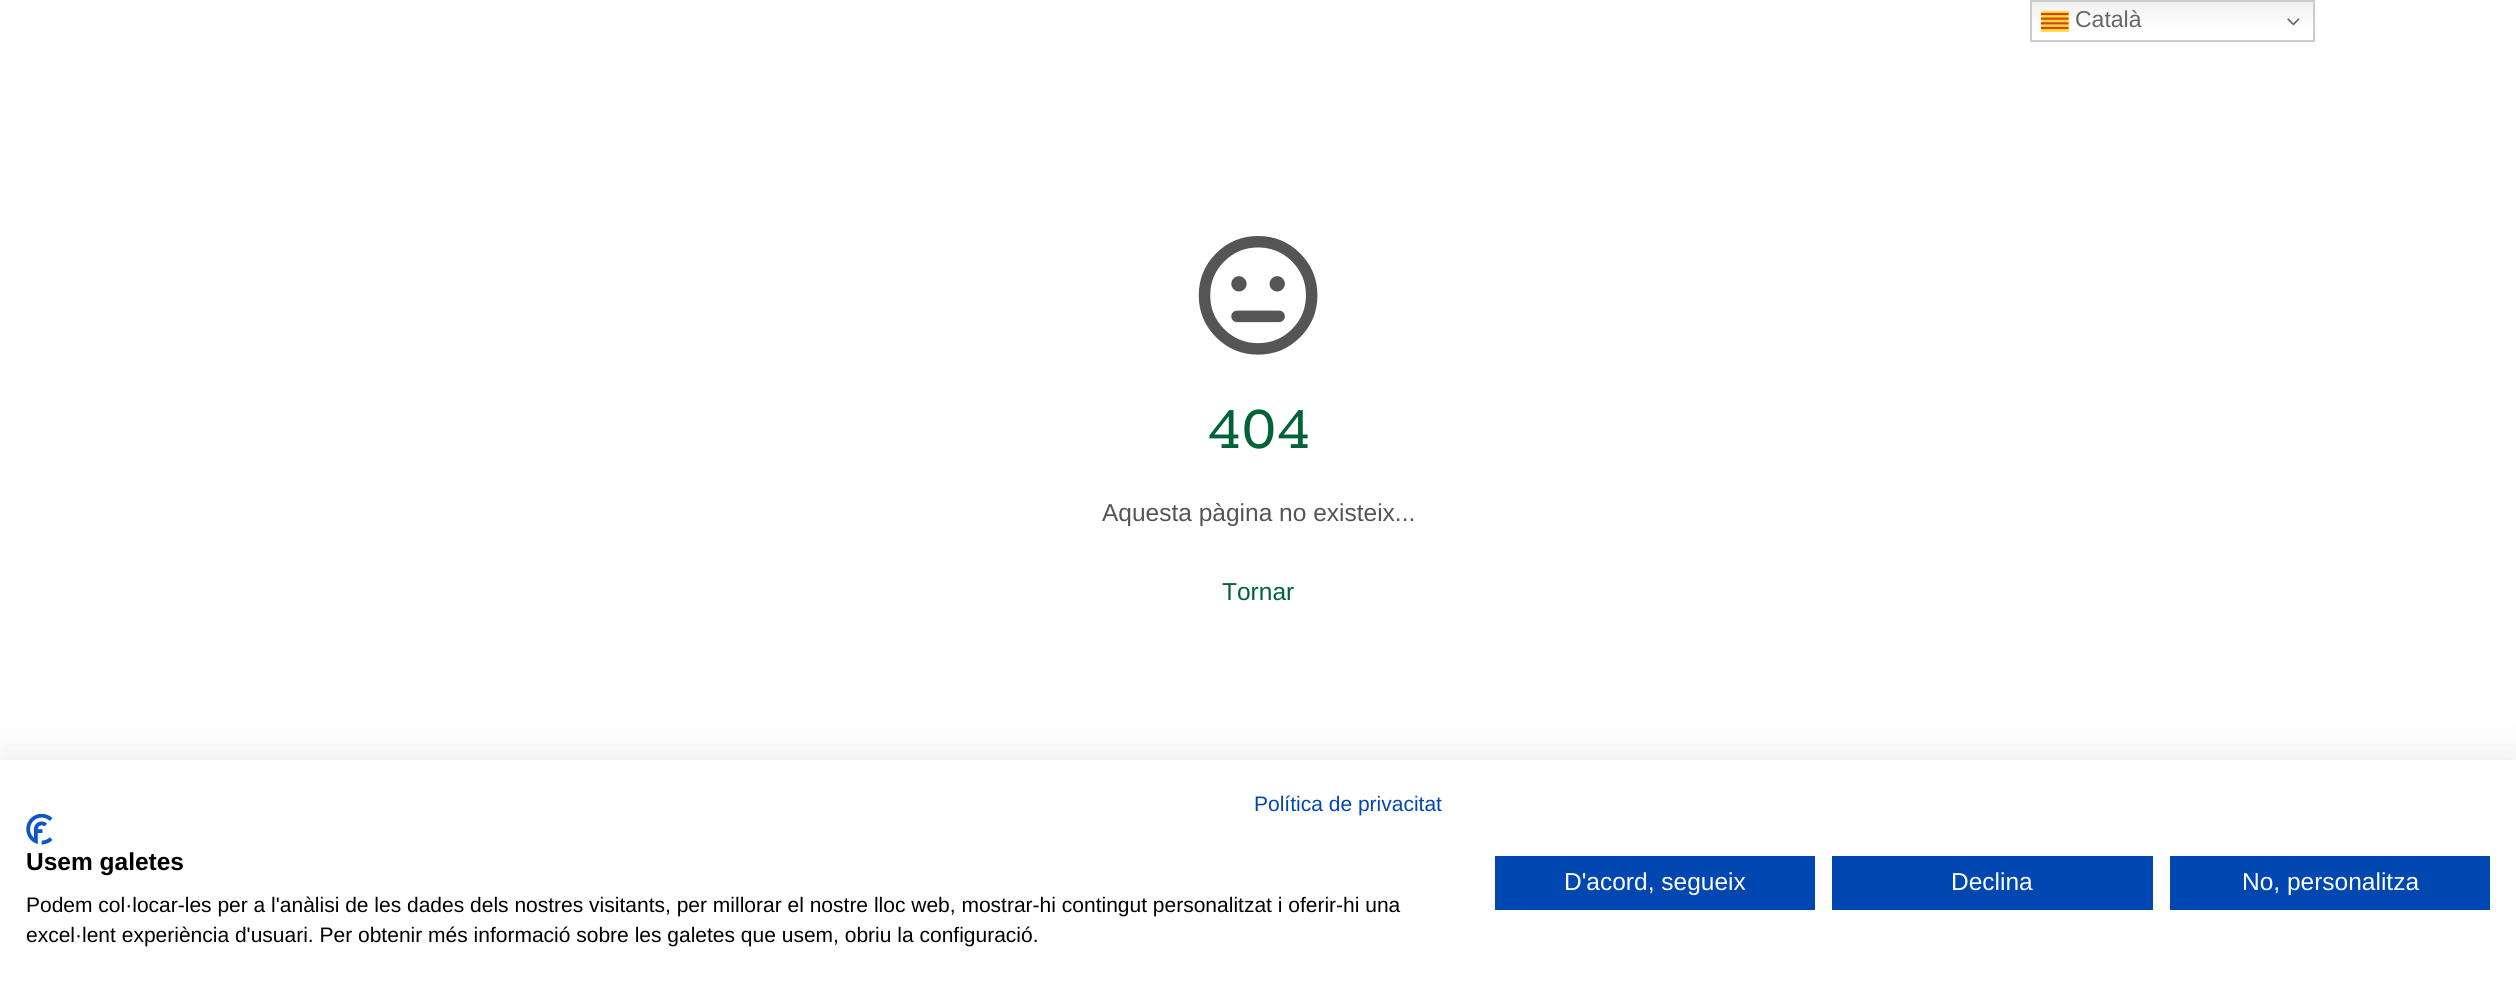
#include <cairo.h>
#include <math.h>
#include <stddef.h>


static void set_color(cairo_t *cr, unsigned color) {
    cairo_set_source_rgb(cr, (color >> 16) / 255.0, (color >> 8 & 255) / 255.0, (color & 255) / 255.0);
}

static void draw_text(cairo_t *cr, double x, double y, const char *s, const char *family, double size, int italic, int bold, unsigned color) {
    cairo_select_font_face(cr, family, italic ? CAIRO_FONT_SLANT_ITALIC : CAIRO_FONT_SLANT_NORMAL,
        bold ? CAIRO_FONT_WEIGHT_BOLD : CAIRO_FONT_WEIGHT_NORMAL);
    cairo_set_font_size(cr, size);
    set_color(cr, color);
    cairo_move_to(cr, x, y);
    cairo_show_text(cr, s);
}

static void fill_rect(cairo_t *cr, double x, double y, double w, double h, unsigned color) {
    set_color(cr, color);
    cairo_rectangle(cr, x, y, w, h);
    cairo_fill(cr);
}

static void rounded_rect(cairo_t *cr, double x, double y, double w, double h, double r) {
    cairo_new_sub_path(cr);
    cairo_arc(cr, x + w - r, y + h - r, r, 0, M_PI / 2);
    cairo_arc(cr, x + r, y + h - r, r, M_PI / 2, M_PI);
    cairo_arc(cr, x + r, y + r, r, M_PI, 1.5 * M_PI);
    cairo_arc(cr, x + w - r, y + r, r, 1.5 * M_PI, 2 * M_PI);
    cairo_close_path(cr);
}

static void draw_shadow(cairo_t *cr, double x, double y, double w, double h, double r, double blur, double alpha) {
    cairo_push_group_with_content(cr, CAIRO_CONTENT_ALPHA);
    cairo_set_operator(cr, CAIRO_OPERATOR_SOURCE);
    for (int i = 15; i >= -15 && fmin(w, h) + blur * i / 3 > 0; i -= 2) {
        double e = blur * i / 6;
        cairo_set_source_rgba(cr, 0, 0, 0, alpha * erfc((i - 1) / 8.5) / 2);
        rounded_rect(cr, x - e, y - e, w + 2 * e, h + 2 * e, fmax(0, fmin(r + e + blur * .6, fmin(w, h) / 2 + e)));
        cairo_fill(cr);
    }
    cairo_pattern_t *soft = cairo_pop_group(cr);
    cairo_mask(cr, soft);
    cairo_pattern_destroy(soft);
}

static void draw_image(cairo_t *cr, const char *path, double x, double y, double w, double h) {
    cairo_surface_t *image = cairo_image_surface_create_from_png(path);
    cairo_save(cr);
    cairo_set_source_surface(cr, image, x, y);
    cairo_rectangle(cr, x, y, w, h);
    cairo_fill(cr);
    cairo_restore(cr);
    cairo_surface_destroy(image);
}

int main(void) {
    cairo_surface_t *surface = cairo_image_surface_create(CAIRO_FORMAT_RGB24, 2516, 996);
    cairo_t *cr = cairo_create(surface);
    cairo_font_options_t *options = cairo_font_options_create();
    cairo_font_options_set_hint_metrics(options, CAIRO_HINT_METRICS_OFF);
    cairo_font_options_set_hint_style(options, CAIRO_HINT_STYLE_NONE);
    cairo_set_font_options(cr, options);
    cairo_set_miter_limit(cr, 4);
    cairo_pattern_t *gradient;
    set_color(cr, 0xFFFFFF);
    cairo_paint(cr);
    gradient = cairo_pattern_create_linear(2173, 0, 2173, 42);
    cairo_pattern_add_color_stop_rgba(gradient, 0, 0.937, 0.937, 0.937, 1);
    cairo_pattern_add_color_stop_rgba(gradient, 0.7, 1, 1, 1, 1);
    cairo_set_source(cr, gradient);
    cairo_pattern_destroy(gradient);
    cairo_rectangle(cr, 2032, 2, 281, 23);
    cairo_fill(cr);
    cairo_rectangle(cr, 2031, 1, 283, 40);
    set_color(cr, 0xCCCCCC);
    cairo_stroke(cr);
    draw_image(cr, "assets/img1.png", 2041, 11, 28, 21);
    draw_text(cr, 2075, 27, "Català", "Liberation Sans", 23, 0, 0, 0x666666);
    draw_image(cr, "assets/img2.png", 2287, 18, 13, 8);
    draw_image(cr, "assets/img3.png", 1198, 236, 120, 119);
    draw_text(cr, 1207, 448, "404", "Rokkitt", 65, 0, 0, 0x006338);
    draw_text(cr, 1102, 521, "Aquesta pàgina no existeix...", "Liberation Sans", 24.5, 0, 0, 0x555555);
    draw_text(cr, 1222, 600, "Tornar", "Liberation Sans", 24.5, 0, 0, 0x006338);
    set_color(cr, 0x000000);
    draw_shadow(cr, 0, 760, 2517, 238, 0, 21, 0.1);
    fill_rect(cr, 0, 760, 2516, 236, 0xFFFFFF);
    draw_text(cr, 1254, 811, "Política de privacitat", "Liberation Sans", 21, 0, 0, 0x0047B2);
    draw_image(cr, "assets/img4.png", 26, 814, 27, 31);
    draw_text(cr, 26, 870, "Usem galetes", "Liberation Sans", 24.5, 0, 1, 0x000000);
    draw_text(cr, 26, 912, "Podem col·locar-les per a l'anàlisi de les dades dels nostres visitants, per millorar el nostre lloc web, mostrar-hi contingut personalitzat i oferir-hi una", "Liberation Sans", 21, 0, 0, 0x000000);
    draw_text(cr, 26, 942, "excel·lent experiència d'usuari. Per obtenir més informació sobre les galetes que usem, obriu la configuració.", "Liberation Sans", 21, 0, 0, 0x000000);
    fill_rect(cr, 1495, 856, 320, 54, 0x0047B2);
    draw_text(cr, 1564, 890, "D'acord, segueix", "Liberation Sans", 24.5, 0, 0, 0xFFFFFF);
    fill_rect(cr, 1832, 856, 321, 54, 0x0047B2);
    draw_text(cr, 1951, 890, "Declina", "Liberation Sans", 24.5, 0, 0, 0xFFFFFF);
    fill_rect(cr, 2170, 856, 320, 54, 0x0047B2);
    draw_text(cr, 2242, 890, "No, personalitza", "Liberation Sans", 24.5, 0, 0, 0xFFFFFF);
    cairo_surface_write_to_png(surface, "output.png");
    cairo_font_options_destroy(options);
    cairo_destroy(cr);
    cairo_surface_destroy(surface);
    return 0;
}
